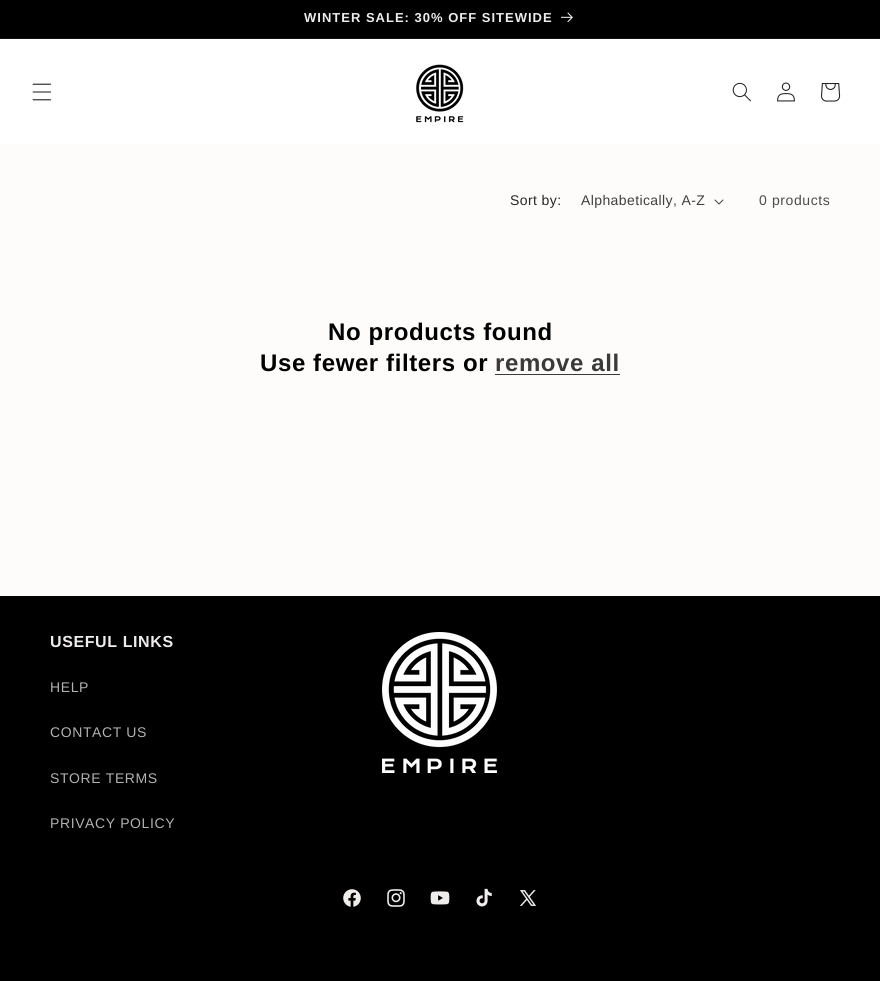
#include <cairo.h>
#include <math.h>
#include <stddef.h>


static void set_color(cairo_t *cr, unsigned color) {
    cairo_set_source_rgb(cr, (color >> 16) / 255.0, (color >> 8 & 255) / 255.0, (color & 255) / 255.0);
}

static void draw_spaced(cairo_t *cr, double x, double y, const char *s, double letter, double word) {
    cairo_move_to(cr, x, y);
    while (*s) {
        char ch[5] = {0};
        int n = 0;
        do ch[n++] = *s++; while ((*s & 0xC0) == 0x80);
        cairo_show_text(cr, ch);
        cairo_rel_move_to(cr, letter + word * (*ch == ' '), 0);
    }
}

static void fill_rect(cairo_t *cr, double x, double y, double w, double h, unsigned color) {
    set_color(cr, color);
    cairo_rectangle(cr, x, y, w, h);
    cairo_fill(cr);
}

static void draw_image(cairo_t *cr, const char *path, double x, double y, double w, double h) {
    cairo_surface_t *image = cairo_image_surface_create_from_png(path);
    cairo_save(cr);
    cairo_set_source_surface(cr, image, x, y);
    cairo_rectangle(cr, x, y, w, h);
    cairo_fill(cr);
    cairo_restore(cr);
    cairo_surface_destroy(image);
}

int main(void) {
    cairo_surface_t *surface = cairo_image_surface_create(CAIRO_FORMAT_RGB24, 880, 981);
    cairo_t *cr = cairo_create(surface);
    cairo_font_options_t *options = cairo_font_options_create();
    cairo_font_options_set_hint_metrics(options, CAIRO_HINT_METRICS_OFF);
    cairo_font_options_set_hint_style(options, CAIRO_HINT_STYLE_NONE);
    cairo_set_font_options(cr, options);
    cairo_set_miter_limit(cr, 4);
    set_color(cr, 0xFDFCFB);
    cairo_paint(cr);
    fill_rect(cr, 0, 0, 880, 38, 0x000000);
    fill_rect(cr, 0, 38, 880, 1, 0x131313);
    cairo_select_font_face(cr, "Liberation Sans", CAIRO_FONT_SLANT_NORMAL, CAIRO_FONT_WEIGHT_BOLD);
    cairo_set_font_size(cr, 13);
    set_color(cr, 0xEFECEC);
    draw_spaced(cr, 304, 22, "WINTER SALE: 30% OFF SITEWIDE", 1, 0);
    draw_image(cr, "assets/img1.png", 561, 12, 12, 11);
    fill_rect(cr, 0, 39, 880, 105, 0xFFFFFF);
    draw_image(cr, "assets/img2.png", 32, 83, 20, 18);
    draw_image(cr, "assets/img3.png", 416, 64, 48, 59);
    draw_image(cr, "assets/img4.png", 732, 82, 19, 20);
    draw_image(cr, "assets/img5.png", 777, 82, 18, 20);
    draw_image(cr, "assets/img6.png", 821, 83, 20, 19);
    cairo_select_font_face(cr, "Liberation Sans", CAIRO_FONT_SLANT_NORMAL, CAIRO_FONT_WEIGHT_NORMAL);
    cairo_set_font_size(cr, 14);
    set_color(cr, 0x262626);
    draw_spaced(cr, 510, 205, "Sort by:", 0.4, 0);
    set_color(cr, 0x3F3F3F);
    draw_spaced(cr, 581, 205, "Alphabetically, A-Z", 0.4, 0);
    draw_image(cr, "assets/img7.png", 714, 199, 10, 6);
    set_color(cr, 0x4C4C4B);
    draw_spaced(cr, 759, 205, "0 products", 0.6, 0);
    cairo_select_font_face(cr, "Liberation Sans", CAIRO_FONT_SLANT_NORMAL, CAIRO_FONT_WEIGHT_BOLD);
    cairo_set_font_size(cr, 24);
    set_color(cr, 0x000000);
    draw_spaced(cr, 328, 340, "No products found", 0.6, 0);
    draw_spaced(cr, 260, 371, "Use fewer filters or", 0.6, 0);
    set_color(cr, 0x393A39);
    draw_spaced(cr, 495, 371, "remove all", 0.6, 0);
    fill_rect(cr, 495, 374, 125, 1, 0x393A39);
    fill_rect(cr, 0, 596, 880, 385, 0x000000);
    cairo_set_font_size(cr, 16);
    set_color(cr, 0xEFECEC);
    draw_spaced(cr, 50, 647, "USEFUL LINKS", 0.6, 0);
    cairo_select_font_face(cr, "Liberation Sans", CAIRO_FONT_SLANT_NORMAL, CAIRO_FONT_WEIGHT_NORMAL);
    cairo_set_font_size(cr, 14);
    set_color(cr, 0xB3B1B1);
    draw_spaced(cr, 50, 692, "HELP", 0.6, 0);
    draw_spaced(cr, 50, 737, "CONTACT US", 0.6, 0);
    draw_spaced(cr, 50, 783, "STORE TERMS", 0.6, 0);
    draw_spaced(cr, 50, 828, "PRIVACY POLICY", 0.6, 0);
    draw_image(cr, "assets/img8.png", 382, 632, 115, 141);
    draw_image(cr, "assets/img9.png", 343, 889, 18, 18);
    draw_image(cr, "assets/img10.png", 387, 889, 18, 18);
    draw_image(cr, "assets/img11.png", 430, 891, 20, 14);
    draw_image(cr, "assets/img12.png", 476, 888, 16, 19);
    draw_image(cr, "assets/img13.png", 519, 890, 17, 16);
    cairo_surface_write_to_png(surface, "output.png");
    cairo_font_options_destroy(options);
    cairo_destroy(cr);
    cairo_surface_destroy(surface);
    return 0;
}
